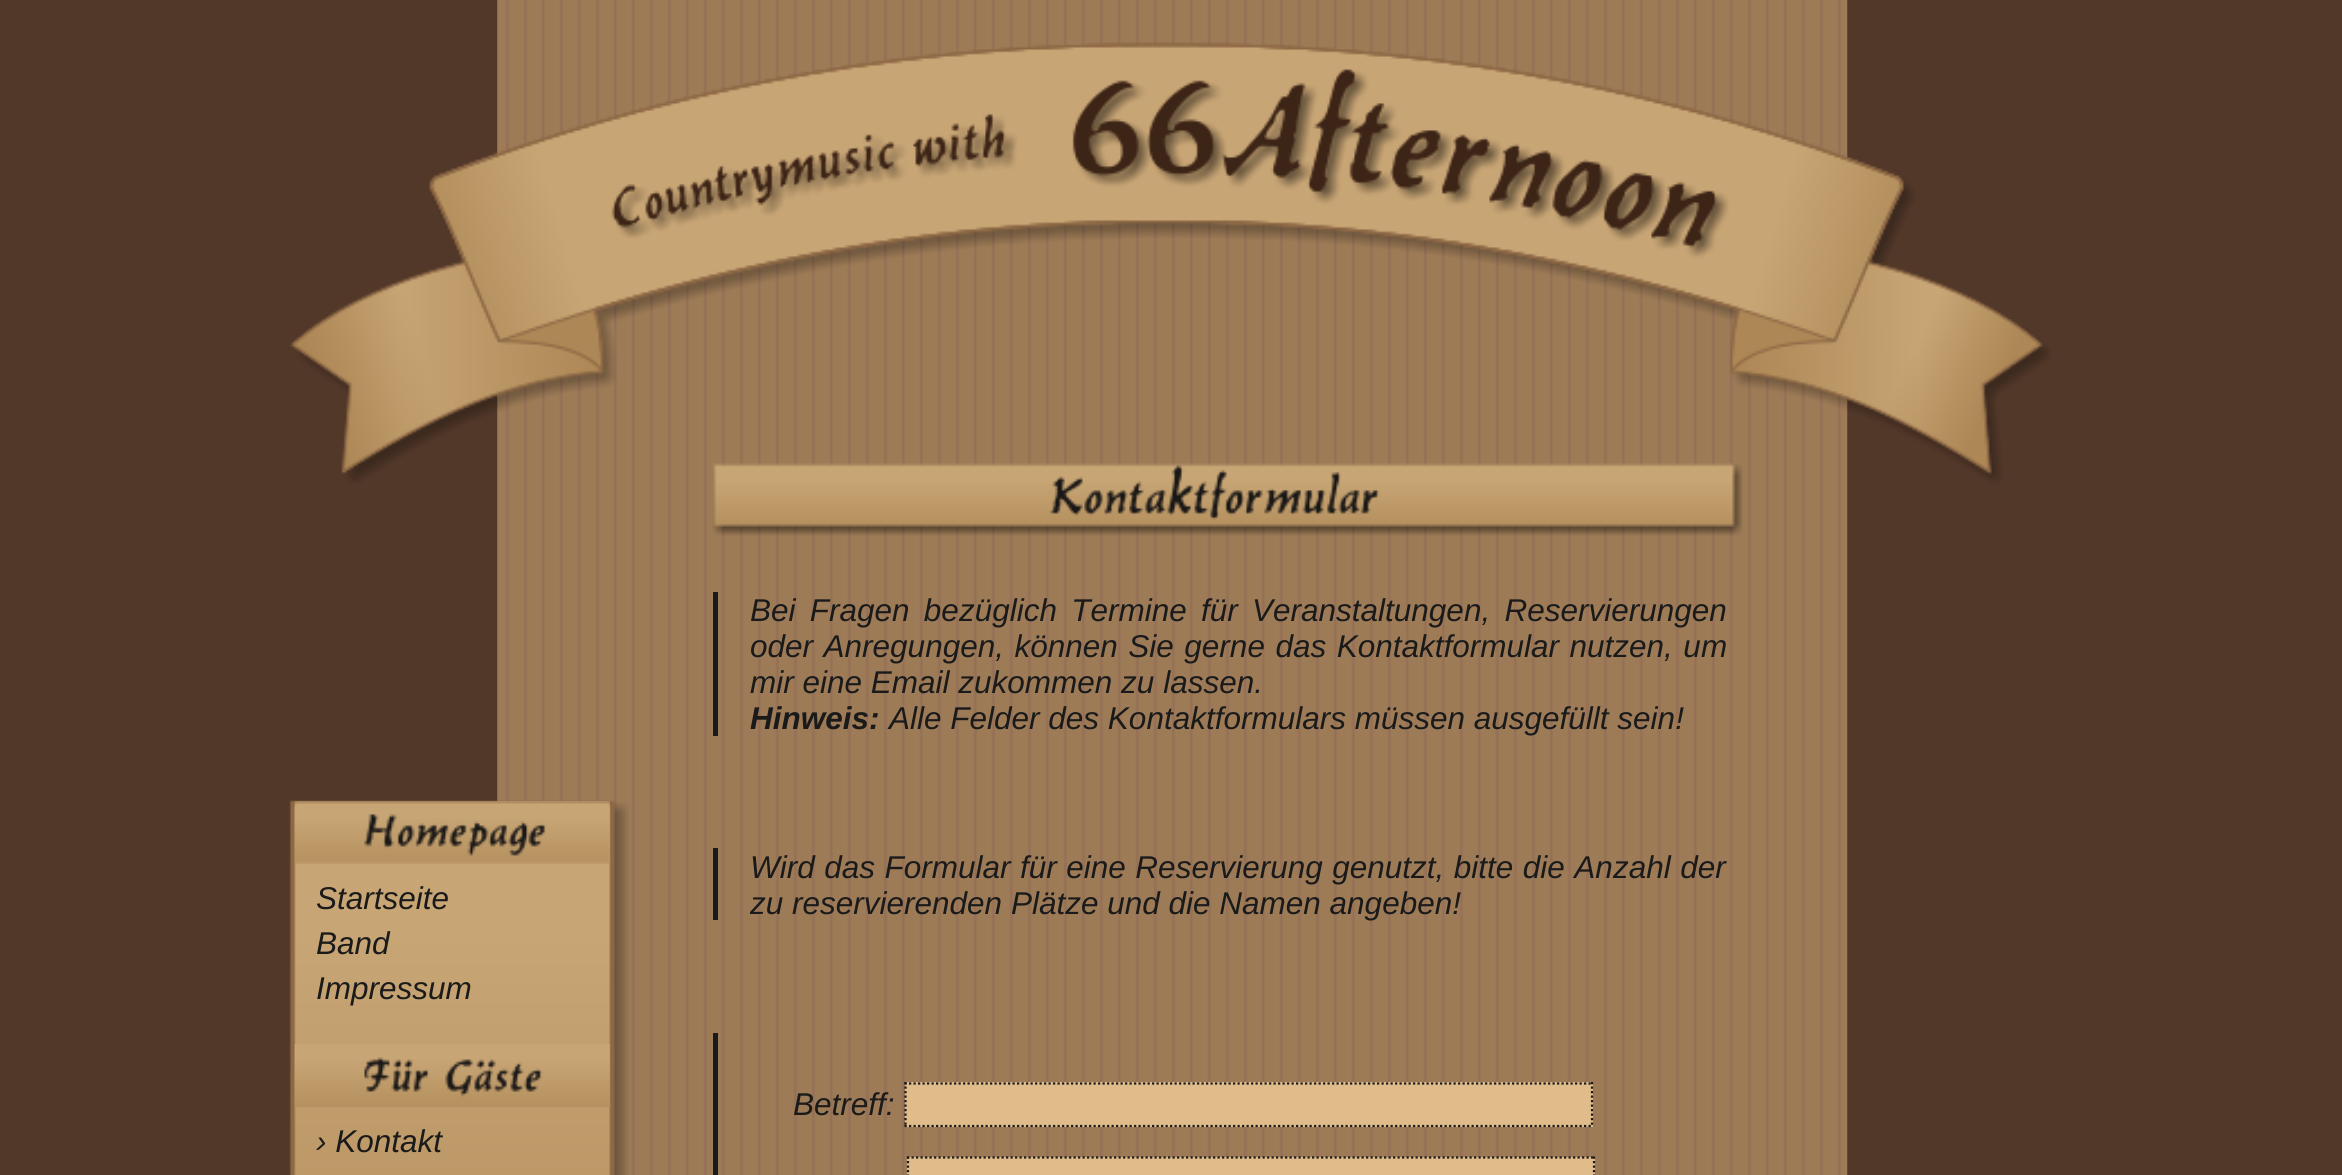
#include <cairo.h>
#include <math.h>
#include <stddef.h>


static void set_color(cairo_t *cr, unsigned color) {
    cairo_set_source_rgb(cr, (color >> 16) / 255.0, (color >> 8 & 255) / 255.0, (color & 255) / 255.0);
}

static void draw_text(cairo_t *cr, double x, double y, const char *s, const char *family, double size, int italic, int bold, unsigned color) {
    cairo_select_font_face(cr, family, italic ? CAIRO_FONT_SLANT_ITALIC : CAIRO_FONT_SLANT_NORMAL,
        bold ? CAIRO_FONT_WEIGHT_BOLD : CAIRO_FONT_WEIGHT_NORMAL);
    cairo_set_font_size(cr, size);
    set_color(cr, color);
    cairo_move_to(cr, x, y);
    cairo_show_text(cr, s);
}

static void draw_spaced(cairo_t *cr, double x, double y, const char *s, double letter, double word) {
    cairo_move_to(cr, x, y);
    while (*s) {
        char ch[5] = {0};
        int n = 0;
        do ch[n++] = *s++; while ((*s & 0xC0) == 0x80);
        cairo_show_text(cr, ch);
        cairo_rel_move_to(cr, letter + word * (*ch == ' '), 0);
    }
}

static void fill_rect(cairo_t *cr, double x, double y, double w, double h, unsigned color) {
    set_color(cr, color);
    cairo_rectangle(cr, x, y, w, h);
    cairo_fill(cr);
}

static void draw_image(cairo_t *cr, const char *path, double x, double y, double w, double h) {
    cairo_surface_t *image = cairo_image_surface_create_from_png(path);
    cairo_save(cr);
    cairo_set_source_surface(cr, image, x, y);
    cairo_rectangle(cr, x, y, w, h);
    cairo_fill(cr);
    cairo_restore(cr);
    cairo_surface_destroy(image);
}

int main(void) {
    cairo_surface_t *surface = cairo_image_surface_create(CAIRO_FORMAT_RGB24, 2342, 1175);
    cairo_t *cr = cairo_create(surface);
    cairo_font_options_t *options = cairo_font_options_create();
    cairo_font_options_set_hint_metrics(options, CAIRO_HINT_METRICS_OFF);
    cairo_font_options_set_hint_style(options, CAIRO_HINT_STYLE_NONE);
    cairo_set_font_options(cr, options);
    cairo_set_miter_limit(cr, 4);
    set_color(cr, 0x523829);
    cairo_paint(cr);
    draw_image(cr, "assets/img1.png", 497, 0, 1351, 1175);
    draw_image(cr, "assets/img6.png", 712, 463, 1031, 73);
    draw_image(cr, "assets/img2.png", 290, 42, 1761, 442);
    draw_image(cr, "assets/img3.png", 289, 800, 340, 375);
    draw_image(cr, "assets/img4.png", 294, 801, 316, 63);
    draw_text(cr, 316, 909, "Startseite", "Liberation Sans", 31.5, 1, 0, 0x1A1A1A);
    draw_text(cr, 316, 954, "Band", "Liberation Sans", 31.5, 1, 0, 0x1A1A1A);
    draw_text(cr, 316, 999, "Impressum", "Liberation Sans", 31.5, 1, 0, 0x1A1A1A);
    draw_image(cr, "assets/img5.png", 294, 1044, 316, 63);
    draw_text(cr, 316, 1152, "› Kontakt", "Liberation Sans", 31.5, 1, 0, 0x1A1A1A);
    fill_rect(cr, 713, 592, 5, 144, 0x1A1A1A);
    draw_spaced(cr, 750, 621, "Bei Fragen bezüglich Termine für Veranstaltungen, Reservierungen", 0, 5.5);
    draw_spaced(cr, 750, 657, "oder Anregungen, können Sie gerne das Kontaktformular nutzen, um", 0, 1.75);
    draw_text(cr, 750, 693, "mir eine Email zukommen zu lassen.", "Liberation Sans", 31.5, 1, 0, 0x1A1A1A);
    draw_text(cr, 750, 729, "Hinweis:", "Liberation Sans", 31.5, 1, 1, 0x1A1A1A);
    draw_text(cr, 889, 729, "Alle Felder des Kontaktformulars müssen ausgefüllt sein!", "Liberation Sans", 31.5, 1, 0, 0x1A1A1A);
    fill_rect(cr, 713, 848, 5, 72, 0x1A1A1A);
    draw_spaced(cr, 750, 878, "Wird das Formular für eine Reservierung genutzt, bitte die Anzahl der", 0, 0.75);
    draw_text(cr, 750, 914, "zu reservierenden Plätze und die Namen angeben!", "Liberation Sans", 31.5, 1, 0, 0x1A1A1A);
    fill_rect(cr, 713, 1033, 5, 142, 0x1A1A1A);
    draw_text(cr, 793, 1115, "Betreff:", "Liberation Sans", 31.5, 1, 0, 0x1A1A1A);
    fill_rect(cr, 905, 1082, 688, 45, 0xE1BC8B);
    cairo_new_path(cr);
    cairo_move_to(cr, 904.5, 1083.5);
    cairo_line_to(cr, 1593, 1083.5);
    set_color(cr, 0x1A1A1A);
    cairo_set_line_width(cr, 2.2);
    cairo_set_dash(cr, (double[]){2.25, 2.25}, 2, 0);
    cairo_stroke(cr);
    cairo_new_path(cr);
    cairo_move_to(cr, 1592, 1082);
    cairo_line_to(cr, 1592, 1127);
    cairo_stroke(cr);
    cairo_new_path(cr);
    cairo_move_to(cr, 904.5, 1126);
    cairo_line_to(cr, 1593, 1126);
    cairo_stroke(cr);
    cairo_new_path(cr);
    cairo_move_to(cr, 905.5, 1082);
    cairo_line_to(cr, 905.5, 1127);
    cairo_stroke(cr);
    fill_rect(cr, 907, 1157, 688, 18, 0xE1BC8B);
    cairo_new_path(cr);
    cairo_move_to(cr, 907, 1157.5);
    cairo_line_to(cr, 1595, 1157.5);
    set_color(cr, 0x1A1A1A);
    cairo_stroke(cr);
    cairo_new_path(cr);
    cairo_move_to(cr, 1594, 1156.5);
    cairo_line_to(cr, 1594, 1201.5);
    cairo_stroke(cr);
    cairo_new_path(cr);
    cairo_move_to(cr, 908, 1156.5);
    cairo_line_to(cr, 908, 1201.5);
    cairo_stroke(cr);
    cairo_surface_write_to_png(surface, "output.png");
    cairo_font_options_destroy(options);
    cairo_destroy(cr);
    cairo_surface_destroy(surface);
    return 0;
}
